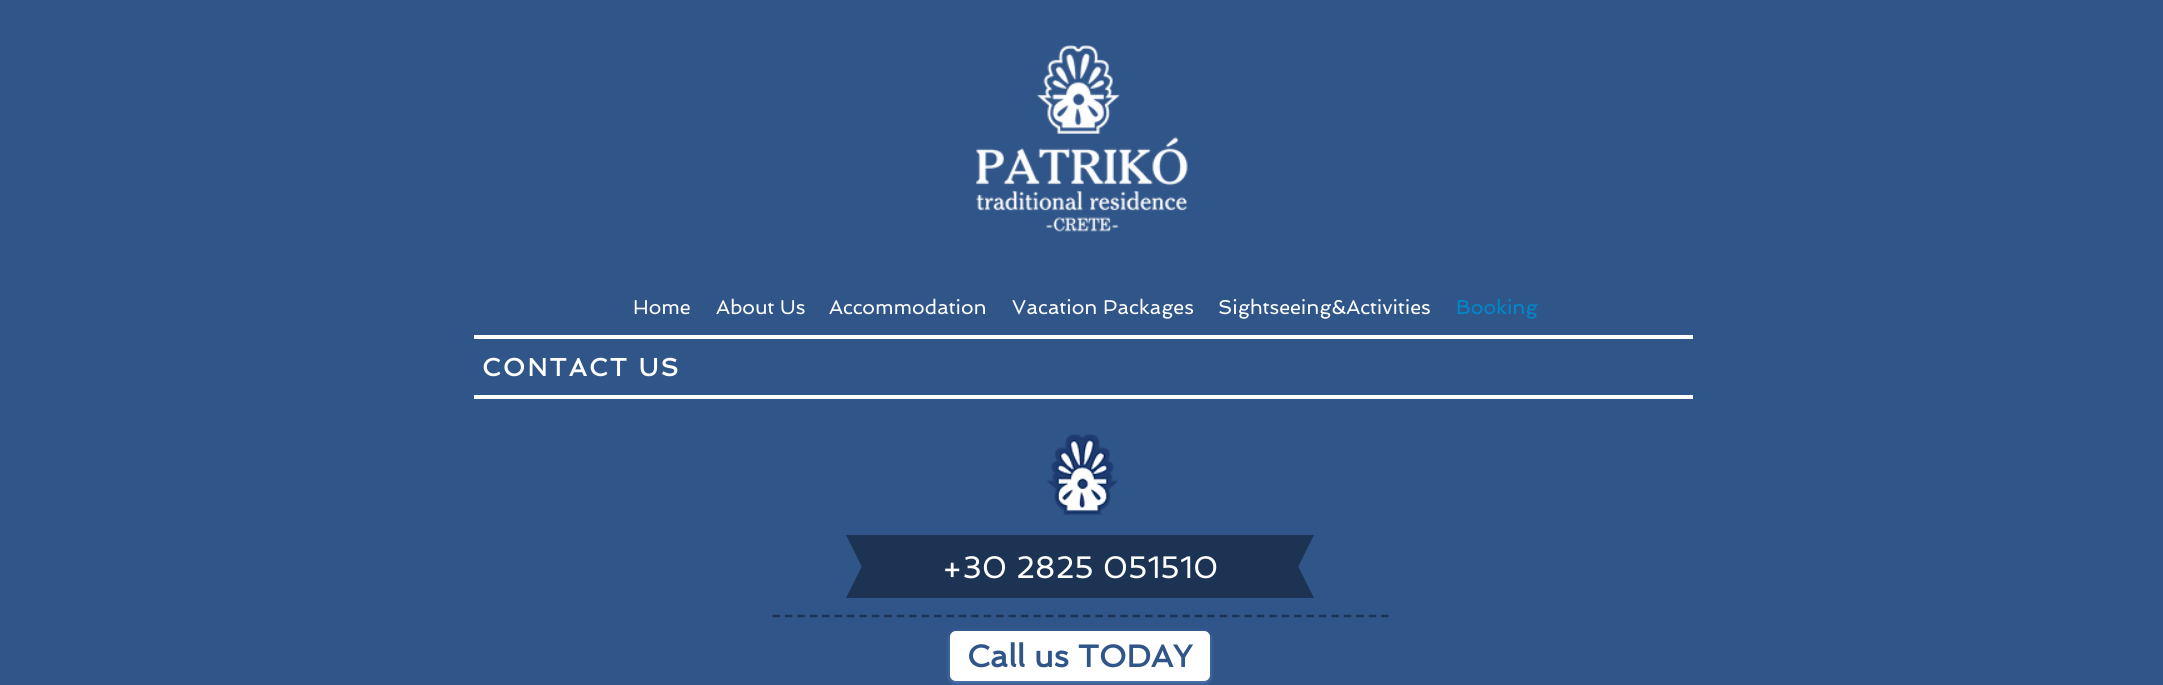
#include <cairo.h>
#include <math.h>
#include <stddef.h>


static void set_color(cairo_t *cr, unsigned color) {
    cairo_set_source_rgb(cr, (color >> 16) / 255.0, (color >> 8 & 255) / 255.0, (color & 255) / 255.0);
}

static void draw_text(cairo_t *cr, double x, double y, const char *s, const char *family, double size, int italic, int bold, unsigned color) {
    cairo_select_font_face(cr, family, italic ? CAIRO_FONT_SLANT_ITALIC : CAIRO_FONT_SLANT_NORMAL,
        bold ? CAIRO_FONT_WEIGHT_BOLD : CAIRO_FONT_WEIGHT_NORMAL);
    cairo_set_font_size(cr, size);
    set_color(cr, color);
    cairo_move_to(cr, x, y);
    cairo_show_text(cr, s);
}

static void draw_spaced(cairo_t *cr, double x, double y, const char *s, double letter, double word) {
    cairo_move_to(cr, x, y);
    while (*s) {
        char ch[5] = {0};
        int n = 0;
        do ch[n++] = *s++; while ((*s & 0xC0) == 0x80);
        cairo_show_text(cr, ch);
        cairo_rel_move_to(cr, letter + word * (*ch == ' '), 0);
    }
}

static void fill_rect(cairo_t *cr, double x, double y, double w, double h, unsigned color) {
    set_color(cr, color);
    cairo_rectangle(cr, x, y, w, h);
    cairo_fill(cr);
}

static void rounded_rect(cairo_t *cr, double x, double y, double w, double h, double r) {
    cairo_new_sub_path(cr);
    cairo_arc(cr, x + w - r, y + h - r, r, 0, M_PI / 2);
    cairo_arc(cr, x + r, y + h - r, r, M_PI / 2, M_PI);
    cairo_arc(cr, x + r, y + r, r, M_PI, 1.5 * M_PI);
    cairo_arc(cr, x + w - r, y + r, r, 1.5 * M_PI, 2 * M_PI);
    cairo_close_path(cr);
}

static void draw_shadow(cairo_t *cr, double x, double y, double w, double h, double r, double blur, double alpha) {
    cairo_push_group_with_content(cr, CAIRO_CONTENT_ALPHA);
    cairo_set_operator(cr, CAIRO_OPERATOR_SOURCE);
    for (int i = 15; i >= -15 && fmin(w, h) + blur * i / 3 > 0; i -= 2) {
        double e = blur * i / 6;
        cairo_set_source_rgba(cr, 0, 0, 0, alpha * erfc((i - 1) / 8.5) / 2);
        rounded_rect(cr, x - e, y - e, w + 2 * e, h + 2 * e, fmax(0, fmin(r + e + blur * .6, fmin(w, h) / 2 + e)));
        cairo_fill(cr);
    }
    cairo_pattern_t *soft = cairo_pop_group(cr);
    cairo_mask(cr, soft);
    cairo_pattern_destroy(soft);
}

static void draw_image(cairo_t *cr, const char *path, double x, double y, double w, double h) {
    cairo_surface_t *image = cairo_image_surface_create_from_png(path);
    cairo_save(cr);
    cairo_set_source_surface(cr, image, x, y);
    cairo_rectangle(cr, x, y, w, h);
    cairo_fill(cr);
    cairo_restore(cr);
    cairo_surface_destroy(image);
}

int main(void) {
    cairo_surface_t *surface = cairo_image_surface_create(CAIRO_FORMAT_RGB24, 2163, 685);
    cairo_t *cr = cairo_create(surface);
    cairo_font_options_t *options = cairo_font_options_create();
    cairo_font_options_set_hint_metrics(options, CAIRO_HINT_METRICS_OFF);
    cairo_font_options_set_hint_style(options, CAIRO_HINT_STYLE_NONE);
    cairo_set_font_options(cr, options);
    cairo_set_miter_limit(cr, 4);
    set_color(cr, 0x305589);
    cairo_paint(cr);
    draw_image(cr, "assets/img1.png", 976, 45, 212, 187);
    draw_text(cr, 633, 314, "Home", "Spinnaker", 20, 0, 0, 0xFFFFFF);
    draw_text(cr, 716, 314, "About Us", "Spinnaker", 20, 0, 0, 0xFFFFFF);
    draw_text(cr, 829, 314, "Accommodation", "Spinnaker", 20, 0, 0, 0xFFFFFF);
    draw_text(cr, 1012, 314, "Vacation Packages", "Spinnaker", 20, 0, 0, 0xFFFFFF);
    draw_text(cr, 1218, 314, "Sightseeing&Activities", "Spinnaker", 20, 0, 0, 0xFFFFFF);
    draw_text(cr, 1456, 314, "Booking", "Spinnaker", 20, 0, 0, 0x0088CB);
    fill_rect(cr, 474, 335, 1219, 4, 0xFFFFFF);
    cairo_select_font_face(cr, "Spinnaker", CAIRO_FONT_SLANT_NORMAL, CAIRO_FONT_WEIGHT_BOLD);
    cairo_set_font_size(cr, 25);
    draw_spaced(cr, 482, 376, "CONTACT US", 2.5, 0);
    fill_rect(cr, 474, 395, 1219, 4, 0xFFFFFF);
    draw_image(cr, "assets/img2.png", 1047, 434, 71, 81);
    cairo_save(cr);
    cairo_rectangle(cr, 846, 535, 234, 33);
    cairo_clip(cr);
    set_color(cr, 0x1C3353);
    cairo_new_path(cr);
    cairo_move_to(cr, 846, 535);
    cairo_line_to(cr, 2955, 535);
    cairo_line_to(cr, 1705, 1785);
    cairo_line_to(cr, 1471, 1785);
    cairo_close_path(cr);
    cairo_fill(cr);
    cairo_restore(cr);
    cairo_save(cr);
    cairo_rectangle(cr, 1079, 535, 235, 33);
    cairo_clip(cr);
    set_color(cr, 0x1C3353);
    cairo_new_path(cr);
    cairo_move_to(cr, -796, 535);
    cairo_line_to(cr, 1314, 535);
    cairo_line_to(cr, 689, 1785);
    cairo_line_to(cr, 454, 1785);
    cairo_close_path(cr);
    cairo_fill(cr);
    cairo_restore(cr);
    cairo_save(cr);
    cairo_rectangle(cr, 846, 566, 234, 32);
    cairo_clip(cr);
    set_color(cr, 0x1C3353);
    cairo_new_path(cr);
    cairo_move_to(cr, 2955, 598);
    cairo_line_to(cr, 846, 598);
    cairo_line_to(cr, 1471, -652);
    cairo_line_to(cr, 1705, -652);
    cairo_close_path(cr);
    cairo_fill(cr);
    cairo_restore(cr);
    cairo_save(cr);
    cairo_rectangle(cr, 1079, 566, 235, 32);
    cairo_clip(cr);
    set_color(cr, 0x1C3353);
    cairo_new_path(cr);
    cairo_move_to(cr, 1314, 598);
    cairo_line_to(cr, -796, 598);
    cairo_line_to(cr, 454, -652);
    cairo_line_to(cr, 689, -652);
    cairo_close_path(cr);
    cairo_fill(cr);
    cairo_restore(cr);
    draw_text(cr, 942, 578, "+30 2825 051510", "Spinnaker", 31.25, 0, 0, 0xFFFFFF);
    cairo_new_path(cr);
    cairo_move_to(cr, 772.5, 616);
    cairo_line_to(cr, 1389, 616);
    set_color(cr, 0x1C3353);
    cairo_set_line_width(cr, 2.5);
    cairo_set_dash(cr, (double[]){7.5, 4.92}, 2, 0);
    cairo_stroke(cr);
    set_color(cr, 0x7297CE);
    draw_shadow(cr, 950, 633, 260, 50, 6, 2.5, 0.6);
    set_color(cr, 0xFFFFFF);
    rounded_rect(cr, 950, 631, 260, 50, 6);
    cairo_fill(cr);
    draw_image(cr, "assets/img3.png", 950, 631, 260, 5);
    draw_text(cr, 967, 667, "Call us TODAY", "Spinnaker", 31.25, 0, 1, 0x305589);
    cairo_surface_write_to_png(surface, "output.png");
    cairo_font_options_destroy(options);
    cairo_destroy(cr);
    cairo_surface_destroy(surface);
    return 0;
}
